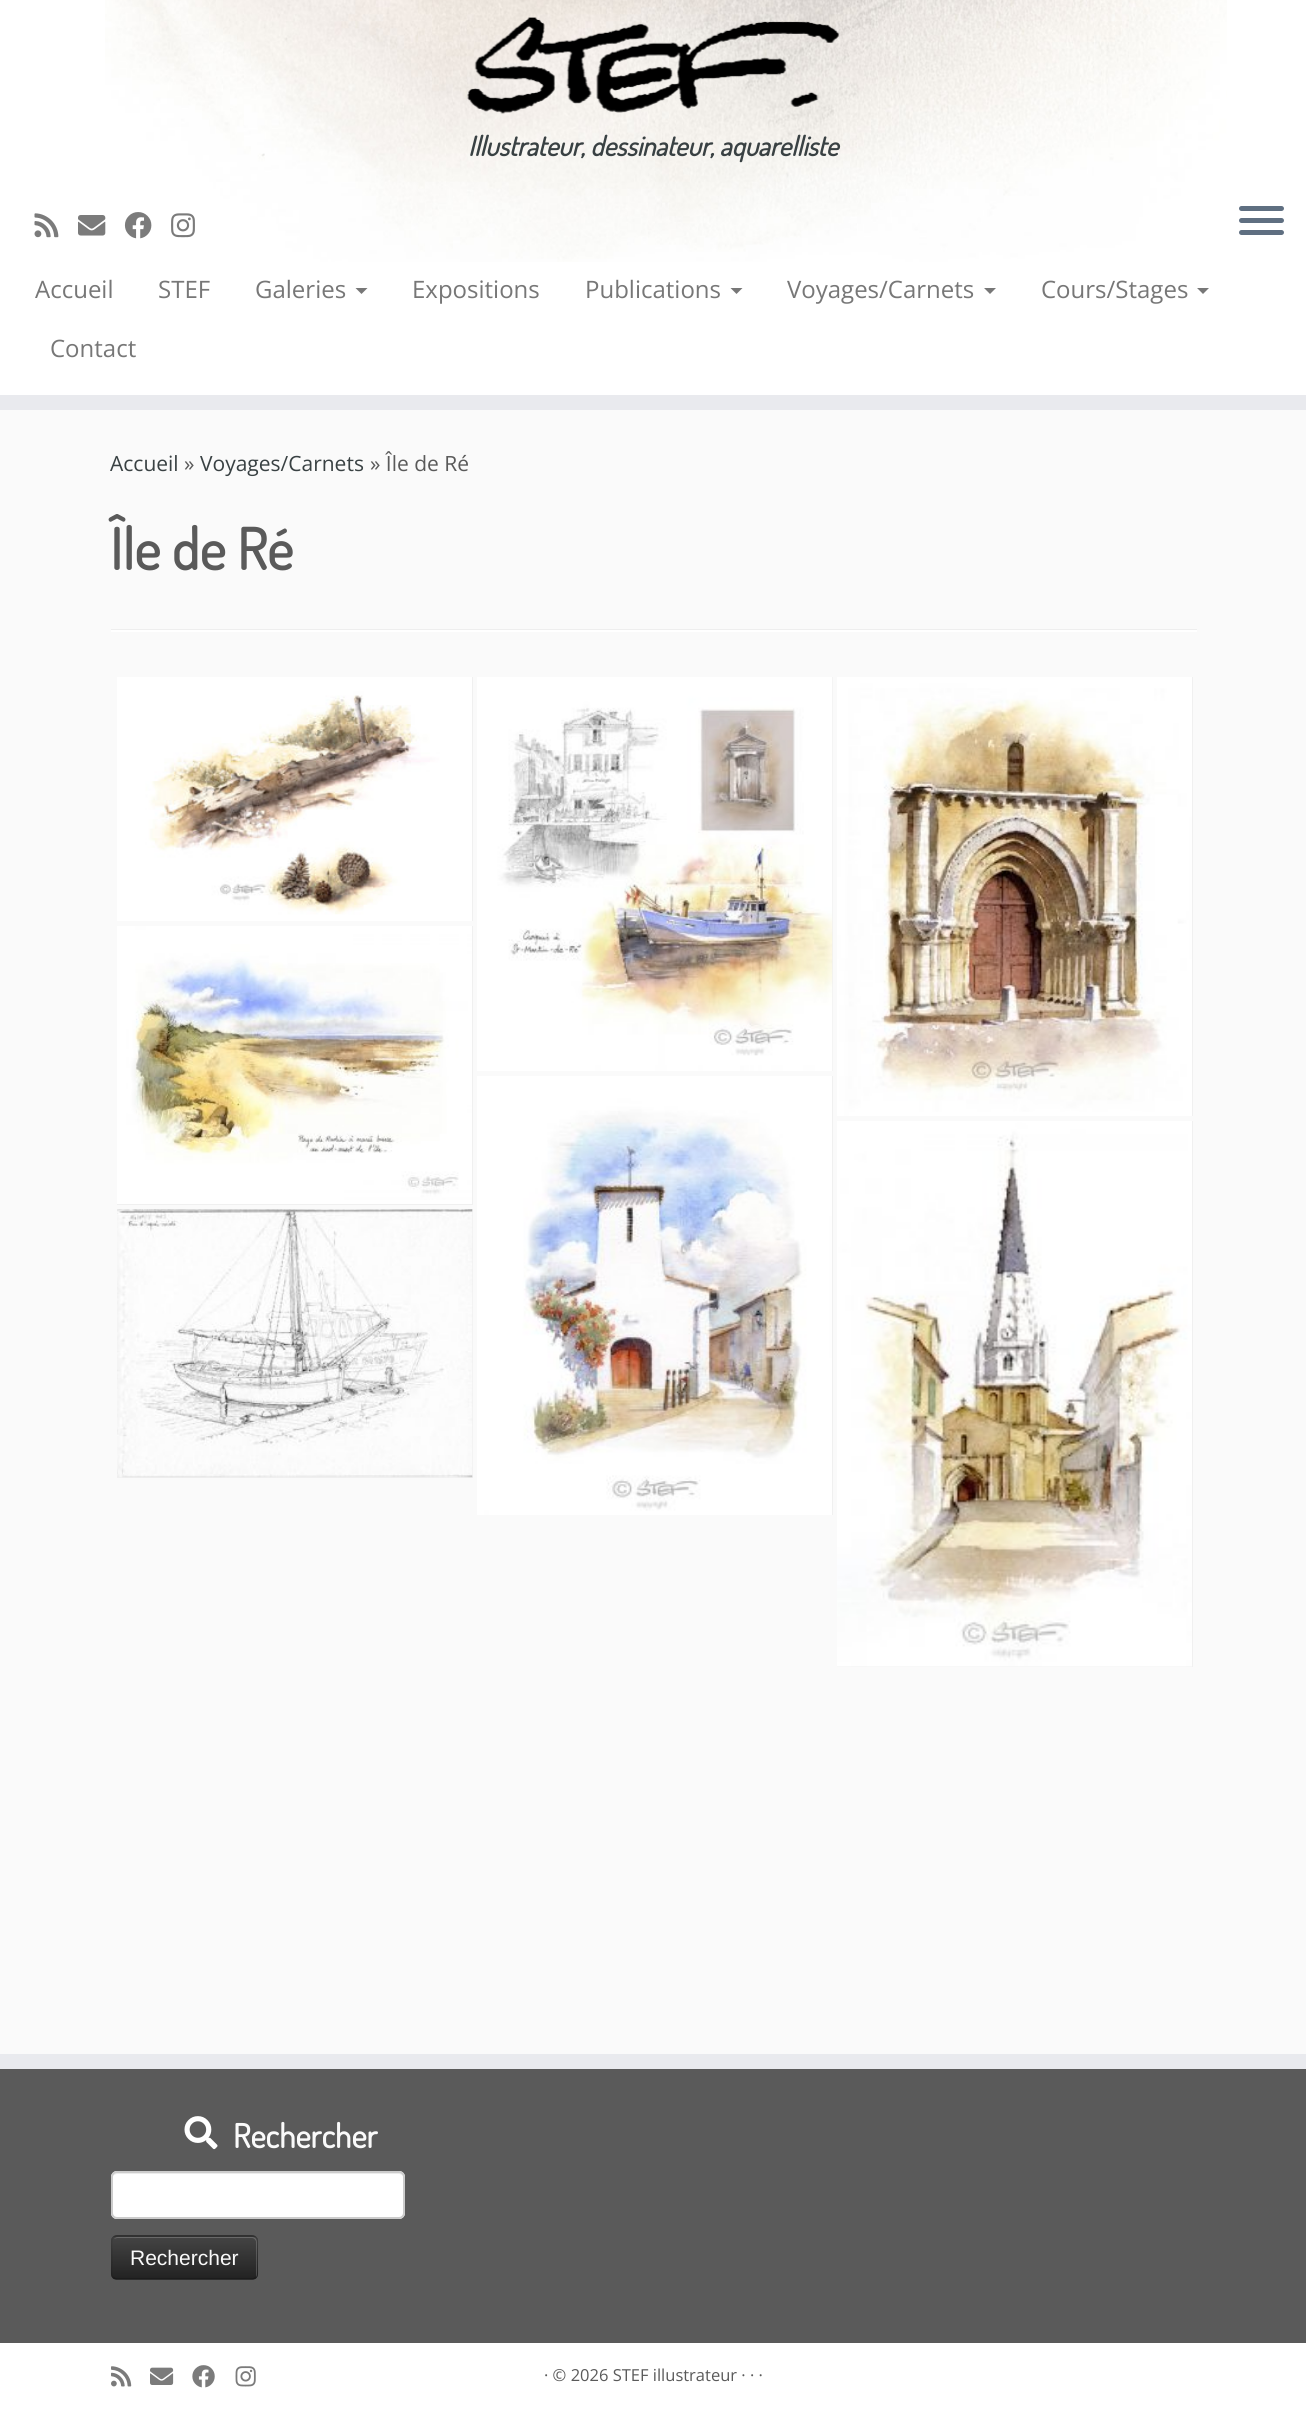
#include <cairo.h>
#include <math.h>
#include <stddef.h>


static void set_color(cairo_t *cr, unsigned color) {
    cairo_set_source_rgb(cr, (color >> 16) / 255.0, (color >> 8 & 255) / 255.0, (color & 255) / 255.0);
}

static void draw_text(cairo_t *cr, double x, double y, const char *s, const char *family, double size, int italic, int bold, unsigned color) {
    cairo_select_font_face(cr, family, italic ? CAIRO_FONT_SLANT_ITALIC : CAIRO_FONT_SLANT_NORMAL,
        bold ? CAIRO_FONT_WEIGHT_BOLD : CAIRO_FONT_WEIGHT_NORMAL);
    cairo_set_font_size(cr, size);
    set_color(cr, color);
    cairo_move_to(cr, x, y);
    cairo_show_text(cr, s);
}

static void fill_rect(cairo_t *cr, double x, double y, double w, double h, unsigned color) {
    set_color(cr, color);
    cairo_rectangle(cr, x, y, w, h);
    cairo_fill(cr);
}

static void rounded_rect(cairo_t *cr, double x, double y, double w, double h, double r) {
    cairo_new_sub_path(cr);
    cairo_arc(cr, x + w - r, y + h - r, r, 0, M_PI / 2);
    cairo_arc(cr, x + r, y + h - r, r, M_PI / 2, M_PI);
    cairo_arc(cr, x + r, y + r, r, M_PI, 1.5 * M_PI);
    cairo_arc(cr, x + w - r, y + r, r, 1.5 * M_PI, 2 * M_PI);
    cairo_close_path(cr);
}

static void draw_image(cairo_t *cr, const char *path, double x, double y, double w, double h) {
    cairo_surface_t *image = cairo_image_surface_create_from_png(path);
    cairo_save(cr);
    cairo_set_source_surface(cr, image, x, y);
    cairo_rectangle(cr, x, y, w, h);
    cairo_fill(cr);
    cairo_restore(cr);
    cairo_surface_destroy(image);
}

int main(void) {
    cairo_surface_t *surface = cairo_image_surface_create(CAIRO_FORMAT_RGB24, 1306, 2420);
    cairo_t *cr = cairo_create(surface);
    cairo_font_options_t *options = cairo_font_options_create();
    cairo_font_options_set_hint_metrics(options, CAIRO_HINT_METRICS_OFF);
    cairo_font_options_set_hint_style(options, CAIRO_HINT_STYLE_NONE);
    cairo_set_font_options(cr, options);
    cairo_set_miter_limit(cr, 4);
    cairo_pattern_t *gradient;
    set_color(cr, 0xFAFAFA);
    cairo_paint(cr);
    fill_rect(cr, 0, 0, 1306, 395, 0xFFFFFF);
    draw_image(cr, "assets/img1.png", 105, 0, 1122, 262);
    fill_rect(cr, 0, 395, 1306, 15, 0xE9EAEE);
    draw_image(cr, "assets/img2.png", 467, 17, 373, 97);
    draw_text(cr, 468, 156, "Illustrateur, dessinateur, aquarelliste", "Dosis", 27, 1, 1, 0x394143);
    draw_image(cr, "assets/img3.png", 34, 213, 25, 25);
    draw_image(cr, "assets/img4.png", 78, 215, 28, 21);
    draw_image(cr, "assets/img5.png", 124, 212, 28, 27);
    draw_image(cr, "assets/img6.png", 171, 213, 24, 25);
    set_color(cr, 0x5F6F81);
    rounded_rect(cr, 1239, 206, 45, 5, 2.5);
    cairo_fill(cr);
    rounded_rect(cr, 1239, 218, 45, 5, 2.5);
    cairo_fill(cr);
    rounded_rect(cr, 1239, 230, 45, 5, 2.5);
    cairo_fill(cr);
    draw_text(cr, 35, 298, "Accueil", "Open Sans", 24, 0, 0, 0x777777);
    draw_text(cr, 158, 298, "STEF", "Open Sans", 24, 0, 0, 0x777777);
    draw_text(cr, 255, 298, "Galeries", "Open Sans", 24, 0, 0, 0x777777);
    cairo_new_path(cr);
    cairo_move_to(cr, 355.5, 288);
    cairo_line_to(cr, 367.5, 288);
    cairo_line_to(cr, 361.5, 294);
    cairo_close_path(cr);
    cairo_fill(cr);
    draw_text(cr, 412, 298, "Expositions", "Open Sans", 24, 0, 0, 0x777777);
    draw_text(cr, 585, 298, "Publications", "Open Sans", 24, 0, 0, 0x777777);
    cairo_new_path(cr);
    cairo_move_to(cr, 730.5, 288);
    cairo_line_to(cr, 742.5, 288);
    cairo_line_to(cr, 736.5, 294);
    cairo_close_path(cr);
    cairo_fill(cr);
    draw_text(cr, 787, 298, "Voyages/Carnets", "Open Sans", 24, 0, 0, 0x777777);
    cairo_new_path(cr);
    cairo_move_to(cr, 984, 288);
    cairo_line_to(cr, 996, 288);
    cairo_line_to(cr, 990, 294);
    cairo_close_path(cr);
    cairo_fill(cr);
    draw_text(cr, 1041, 298, "Cours/Stages", "Open Sans", 24, 0, 0, 0x777777);
    cairo_new_path(cr);
    cairo_move_to(cr, 1197, 288);
    cairo_line_to(cr, 1209, 288);
    cairo_line_to(cr, 1203, 294);
    cairo_close_path(cr);
    cairo_fill(cr);
    draw_text(cr, 50, 357, "Contact", "Open Sans", 24, 0, 0, 0x777777);
    draw_text(cr, 110, 471, "Accueil", "Open Sans", 21, 0, 0, 0x394143);
    draw_text(cr, 184, 471, "»", "Open Sans", 21, 0, 0, 0x5A5A5A);
    draw_text(cr, 200, 471, "Voyages/Carnets", "Open Sans", 21, 0, 0, 0x394143);
    draw_text(cr, 370, 471, "» Île de Ré", "Open Sans", 21, 0, 0, 0x5A5A5A);
    draw_text(cr, 110, 570, "Île de Ré", "Dosis", 57, 0, 1, 0x5A5A5A);
    fill_rect(cr, 111, 629, 1086, 1, 0xEEEEEE);
    fill_rect(cr, 111, 630, 1086, 2, 0xFFFFFF);
    fill_rect(cr, 472, 677, 1, 244, 0xF0F0F0);
    draw_image(cr, "assets/img7.png", 117, 677, 355, 244);
    fill_rect(cr, 832, 677, 1, 394, 0xF0F0F0);
    draw_image(cr, "assets/img8.png", 477, 677, 356, 394);
    fill_rect(cr, 1192, 677, 1, 439, 0xF0F0F0);
    draw_image(cr, "assets/img9.png", 837, 677, 355, 439);
    fill_rect(cr, 117, 926, 356, 279, 0xF0F0F0);
    draw_image(cr, "assets/img10.png", 117, 926, 355, 278);
    fill_rect(cr, 832, 1076, 1, 439, 0xF0F0F0);
    draw_image(cr, "assets/img11.png", 477, 1076, 355, 439);
    fill_rect(cr, 837, 1121, 356, 546, 0xF0F0F0);
    draw_image(cr, "assets/img12.png", 837, 1121, 355, 546);
    fill_rect(cr, 117, 1209, 356, 269, 0xF0F0F0);
    draw_image(cr, "assets/img13.png", 117, 1209, 356, 269);
    fill_rect(cr, 0, 2069, 1306, 274, 0x5A5A5A);
    fill_rect(cr, 0, 2054, 1306, 15, 0xE9EAEE);
    draw_image(cr, "assets/img14.png", 184, 2116, 34, 34);
    draw_text(cr, 233, 2148, "Rechercher", "Dosis", 33, 0, 1, 0xFAFAFA);
    set_color(cr, 0xFFFFFF);
    rounded_rect(cr, 111, 2171, 294, 48, 6);
    cairo_fill(cr);
    set_color(cr, 0xECECEC);
    cairo_new_path(cr);
    cairo_move_to(cr, 117, 2174);
    cairo_line_to(cr, 399, 2174);
    cairo_curve_to(cr, 401, 2174, 404, 2176, 404, 2178);
    cairo_line_to(cr, 404, 2177);
    cairo_curve_to(cr, 404, 2174, 402, 2172, 399, 2172);
    cairo_line_to(cr, 118, 2172);
    cairo_curve_to(cr, 116, 2172, 114, 2174, 113, 2176);
    cairo_curve_to(cr, 114, 2175, 116, 2174, 117, 2174);
    cairo_close_path(cr);
    cairo_fill(cr);
    rounded_rect(cr, 112, 2172, 292, 46, 5);
    set_color(cr, 0xCCCCCC);
    cairo_stroke(cr);
    set_color(cr, 0x363636);
    rounded_rect(cr, 111, 2235, 147, 45, 6);
    cairo_fill(cr);
    cairo_save(cr);
    rounded_rect(cr, 111, 2235, 147, 45, 6);
    cairo_clip(cr);
    gradient = cairo_pattern_create_linear(185, 2237, 185, 2279);
    cairo_pattern_add_color_stop_rgba(gradient, 0, 0.267, 0.267, 0.267, 1);
    cairo_pattern_add_color_stop_rgba(gradient, 1, 0.133, 0.133, 0.133, 1);
    cairo_set_source(cr, gradient);
    cairo_pattern_destroy(gradient);
    cairo_rectangle(cr, 111, 2237, 147, 42);
    cairo_fill(cr);
    cairo_restore(cr);
    cairo_set_source_rgba(cr, 1, 1, 1, 0.2);
    cairo_new_path(cr);
    cairo_move_to(cr, 117, 2238);
    cairo_line_to(cr, 252, 2238);
    cairo_curve_to(cr, 254, 2238, 256, 2240, 256, 2242);
    cairo_line_to(cr, 256, 2277);
    cairo_curve_to(cr, 257, 2276, 257, 2275, 257, 2274);
    cairo_line_to(cr, 257, 2242);
    cairo_curve_to(cr, 257, 2239, 255, 2237, 252, 2237);
    cairo_line_to(cr, 118, 2237);
    cairo_curve_to(cr, 116, 2237, 115, 2238, 114, 2239);
    cairo_close_path(cr);
    cairo_fill(cr);
    cairo_new_path(cr);
    cairo_move_to(cr, 255.5, 2277.5);
    cairo_curve_to(cr, 254.5, 2278.5, 253.5, 2279, 252, 2279);
    cairo_line_to(cr, 117, 2279);
    cairo_curve_to(cr, 115.5, 2279, 114.5, 2278.5, 113.5, 2277.5);
    cairo_set_source_rgba(cr, 0, 0, 0, 0.25);
    cairo_set_line_width(cr, 1.5);
    cairo_stroke(cr);
    cairo_new_path(cr);
    cairo_move_to(cr, 113.5, 2277.5);
    cairo_curve_to(cr, 110, 2274.5, 112, 2266.5, 112, 2263);
    cairo_curve_to(cr, 112, 2231, 106, 2236, 139.5, 2236);
    cairo_line_to(cr, 229.5, 2236);
    cairo_curve_to(cr, 263, 2236, 257, 2231, 257, 2263);
    cairo_curve_to(cr, 257, 2266.5, 259, 2274.5, 255.5, 2277.5);
    cairo_set_source_rgba(cr, 0, 0, 0, 0.1);
    cairo_stroke(cr);
    draw_text(cr, 130, 2265, "Rechercher", "Liberation Sans", 21, 0, 0, 0xFAFAFA);
    fill_rect(cr, 0, 2343, 1306, 77, 0xFFFFFF);
    draw_image(cr, "assets/img15.png", 111, 2366, 21, 21);
    draw_image(cr, "assets/img16.png", 150, 2367, 24, 18);
    draw_image(cr, "assets/img17.png", 192, 2365, 23, 23);
    draw_image(cr, "assets/img18.png", 235, 2366, 21, 21);
    draw_text(cr, 544, 2381, "· © 2026 STEF illustrateur · · ·", "Open Sans", 16.5, 0, 0, 0x5A5A5A);
    cairo_surface_write_to_png(surface, "output.png");
    cairo_font_options_destroy(options);
    cairo_destroy(cr);
    cairo_surface_destroy(surface);
    return 0;
}
